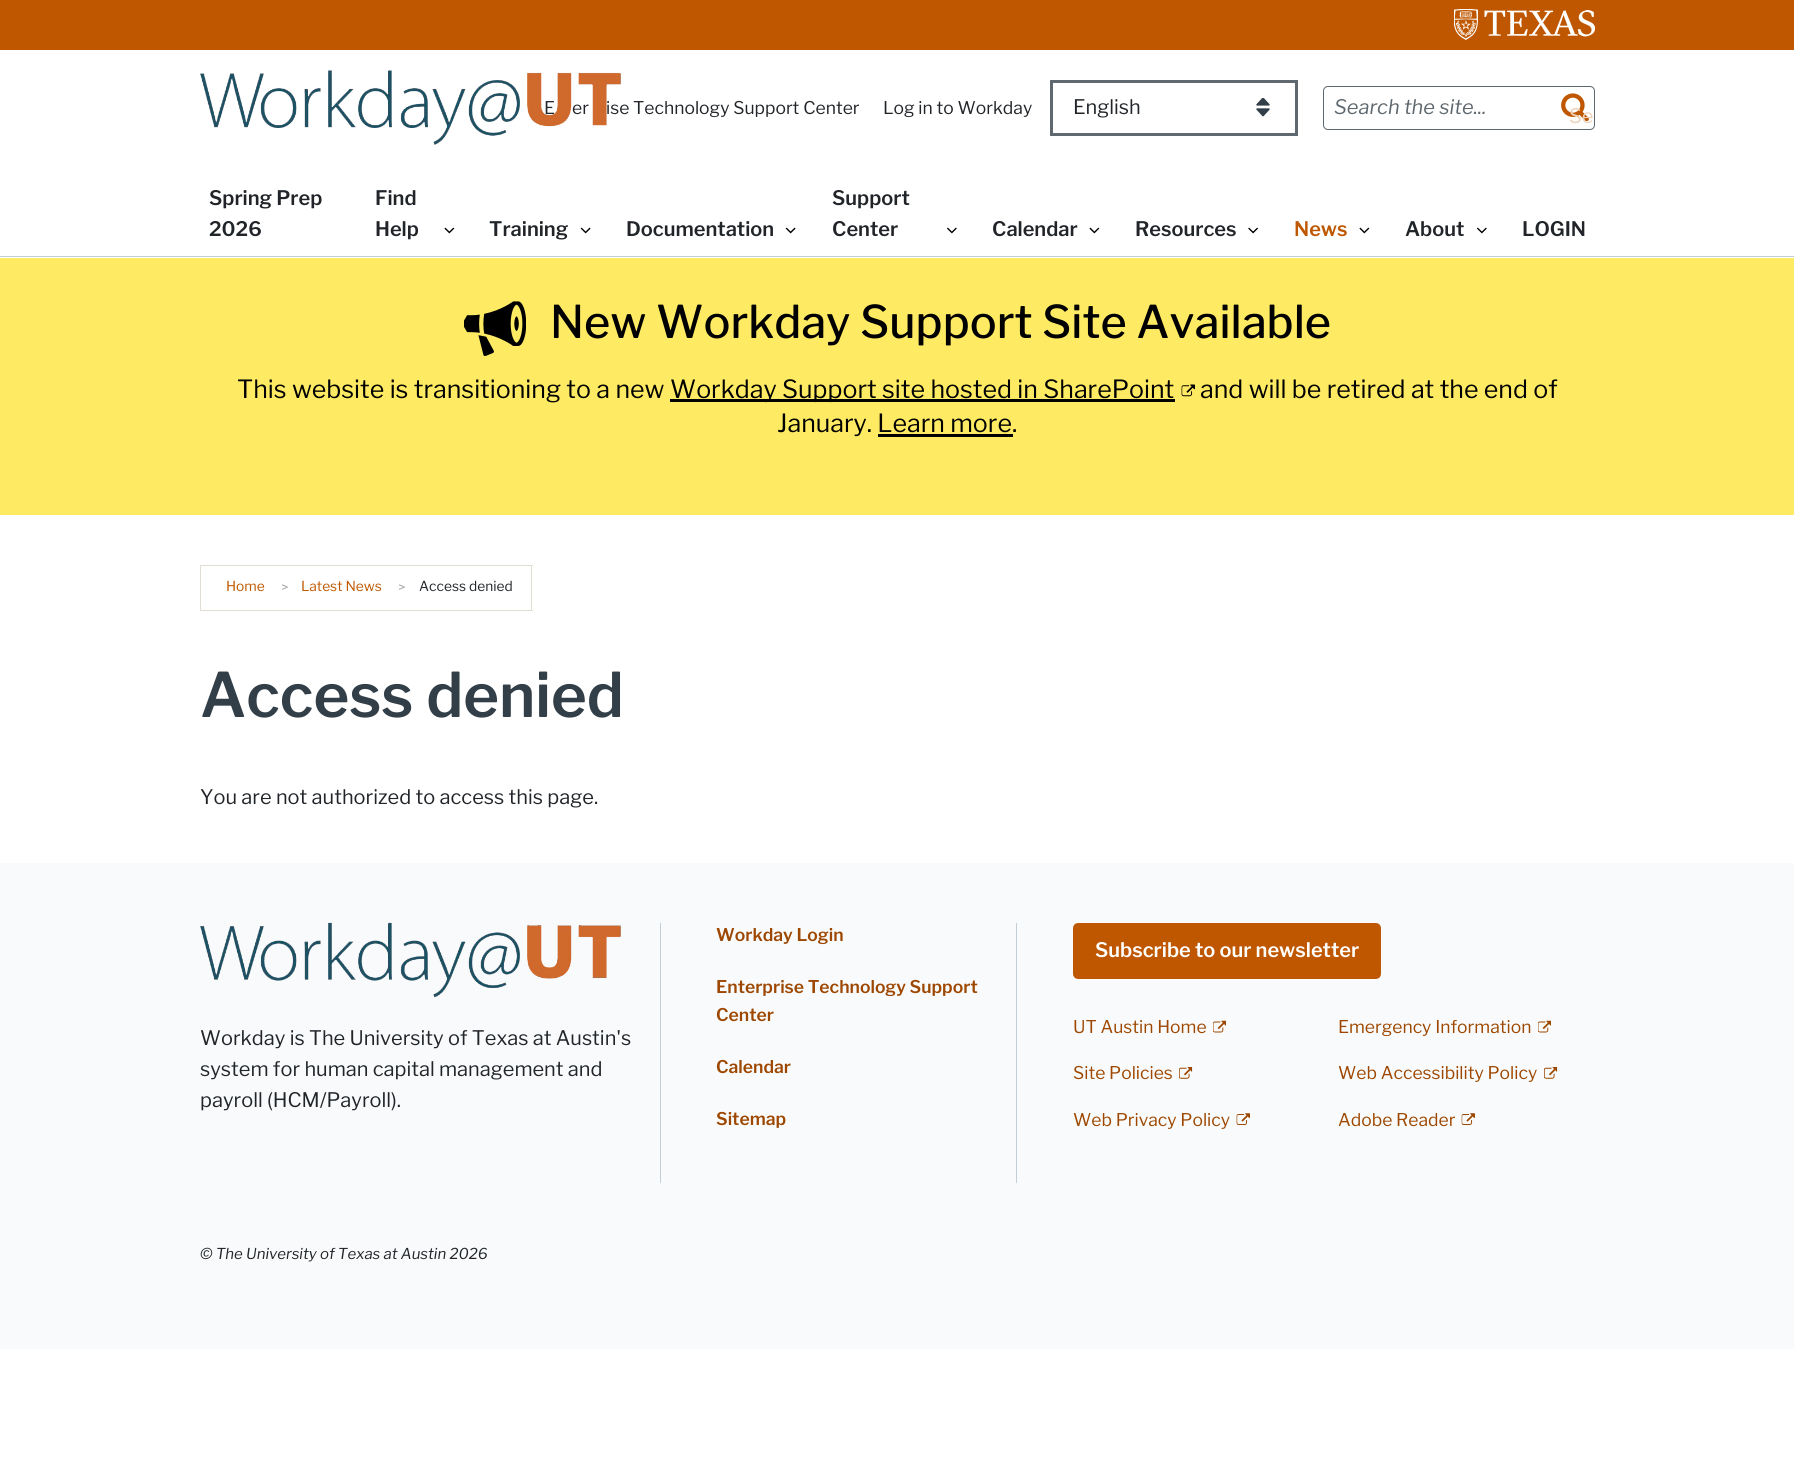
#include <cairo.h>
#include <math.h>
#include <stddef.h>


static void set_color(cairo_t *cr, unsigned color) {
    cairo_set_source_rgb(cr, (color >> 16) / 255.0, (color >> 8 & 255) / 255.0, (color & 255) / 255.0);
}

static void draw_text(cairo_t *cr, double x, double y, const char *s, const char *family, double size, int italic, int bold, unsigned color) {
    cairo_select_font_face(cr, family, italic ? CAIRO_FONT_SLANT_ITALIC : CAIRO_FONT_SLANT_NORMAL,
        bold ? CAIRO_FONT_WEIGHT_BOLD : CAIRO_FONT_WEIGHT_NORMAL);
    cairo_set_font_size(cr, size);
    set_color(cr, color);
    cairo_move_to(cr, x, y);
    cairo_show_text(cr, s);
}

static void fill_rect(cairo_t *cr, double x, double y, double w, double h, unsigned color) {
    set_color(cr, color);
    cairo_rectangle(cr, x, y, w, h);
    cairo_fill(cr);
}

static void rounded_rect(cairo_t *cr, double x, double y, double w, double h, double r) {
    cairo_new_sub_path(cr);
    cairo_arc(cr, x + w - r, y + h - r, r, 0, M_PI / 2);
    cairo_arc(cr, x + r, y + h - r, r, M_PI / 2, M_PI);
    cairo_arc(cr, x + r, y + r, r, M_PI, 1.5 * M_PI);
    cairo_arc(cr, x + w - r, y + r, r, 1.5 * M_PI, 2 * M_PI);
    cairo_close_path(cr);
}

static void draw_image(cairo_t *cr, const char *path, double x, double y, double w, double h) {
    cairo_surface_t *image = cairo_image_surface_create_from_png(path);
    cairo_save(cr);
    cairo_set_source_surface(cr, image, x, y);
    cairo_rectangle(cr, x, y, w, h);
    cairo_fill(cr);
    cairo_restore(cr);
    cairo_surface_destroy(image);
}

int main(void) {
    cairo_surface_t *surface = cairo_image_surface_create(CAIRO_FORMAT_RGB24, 1794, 1478);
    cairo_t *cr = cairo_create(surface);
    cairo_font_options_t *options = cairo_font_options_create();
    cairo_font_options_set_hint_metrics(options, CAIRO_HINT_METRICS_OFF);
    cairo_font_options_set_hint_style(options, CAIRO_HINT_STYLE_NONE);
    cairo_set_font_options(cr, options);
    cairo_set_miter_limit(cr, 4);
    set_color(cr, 0xFFFFFF);
    cairo_paint(cr);
    fill_rect(cr, 0, 0, 1794, 50, 0xBF5700);
    draw_image(cr, "assets/img1.png", 1454, 9, 141, 31);
    fill_rect(cr, 0, 256, 1794, 1, 0xC4CDD4);
    draw_text(cr, 544, 114, "E", "Libre Franklin", 17.5, 0, 0, 0x212529);
    draw_text(cr, 572, 114, "er", "Libre Franklin", 17.5, 0, 0, 0x212529);
    draw_text(cr, 606, 114, "ise Technology Support Center", "Libre Franklin", 17.5, 0, 0, 0x212529);
    draw_image(cr, "assets/img2.png", 200, 70, 422, 75);
    draw_text(cr, 883, 114, "Log in to Workday", "Libre Franklin", 17.5, 0, 0, 0x212529);
    draw_image(cr, "assets/img3.png", 1256, 98, 14, 19);
    cairo_rectangle(cr, 1051.5, 81.5, 245, 53);
    set_color(cr, 0x5E686E);
    cairo_set_line_width(cr, 3);
    cairo_stroke(cr);
    draw_text(cr, 1073, 114, "English", "Libre Franklin", 20, 0, 0, 0x212529);
    rounded_rect(cr, 1323.5, 86.5, 271, 43, 4.5);
    set_color(cr, 0x5E686E);
    cairo_set_line_width(cr, 1);
    cairo_stroke(cr);
    draw_text(cr, 1334, 114, "Search the site...", "Libre Franklin", 20, 1, 0, 0x5E686E);
    draw_image(cr, "assets/img4.png", 1561, 93, 28, 28);
    draw_text(cr, 1569, 123, "Se", "Libre Franklin", 20, 0, 0, 0xEDD1B9);
    draw_text(cr, 209, 205, "Spring Prep", "Libre Franklin SemiBold", 20, 0, 0, 0x212529);
    draw_text(cr, 209, 236, "2026", "Libre Franklin SemiBold", 20, 0, 0, 0x212529);
    draw_text(cr, 375, 205, "Find", "Libre Franklin SemiBold", 20, 0, 0, 0x212529);
    draw_text(cr, 375, 236, "Help", "Libre Franklin SemiBold", 20, 0, 0, 0x212529);
    draw_image(cr, "assets/img5.png", 444, 227, 11, 7);
    draw_text(cr, 489, 236, "Training", "Libre Franklin SemiBold", 20, 0, 0, 0x212529);
    draw_image(cr, "assets/img6.png", 580, 227, 11, 7);
    draw_text(cr, 626, 236, "Documentation", "Libre Franklin SemiBold", 20, 0, 0, 0x212529);
    draw_image(cr, "assets/img6.png", 785, 227, 11, 7);
    draw_text(cr, 832, 205, "Support", "Libre Franklin SemiBold", 20, 0, 0, 0x212529);
    draw_text(cr, 832, 236, "Center", "Libre Franklin SemiBold", 20, 0, 0, 0x212529);
    draw_image(cr, "assets/img7.png", 947, 227, 10, 7);
    draw_text(cr, 992, 236, "Calendar", "Libre Franklin SemiBold", 20, 0, 0, 0x212529);
    draw_image(cr, "assets/img5.png", 1089, 227, 11, 7);
    draw_text(cr, 1135, 236, "Resources", "Libre Franklin SemiBold", 20, 0, 0, 0x212529);
    draw_image(cr, "assets/img8.png", 1248, 227, 10, 7);
    draw_text(cr, 1294, 236, "News", "Libre Franklin SemiBold", 20, 0, 0, 0xBF5700);
    draw_image(cr, "assets/img5.png", 1359, 227, 11, 7);
    draw_text(cr, 1405, 236, "About", "Libre Franklin SemiBold", 20, 0, 0, 0x212529);
    draw_image(cr, "assets/img7.png", 1477, 227, 10, 7);
    draw_text(cr, 1522, 236, "LOGIN", "Libre Franklin SemiBold", 20, 0, 0, 0x212529);
    fill_rect(cr, 0, 258, 1794, 257, 0xFFEB63);
    draw_image(cr, "assets/img9.png", 464, 301, 62, 55);
    draw_text(cr, 550, 338, "New Workday Support Site Available", "Libre Franklin Medium", 45, 0, 0, 0x000000);
    draw_text(cr, 237, 398, "This website is transitioning to a new", "Libre Franklin", 25, 0, 0, 0x000000);
    fill_rect(cr, 670, 399, 505, 3, 0x000000);
    draw_text(cr, 670, 398, "Workday Support site hosted in SharePoint", "Libre Franklin", 25, 0, 0, 0x000000);
    draw_image(cr, "assets/img10.png", 1181, 384, 14, 13);
    draw_text(cr, 1200, 398, "and will be retired at the end of", "Libre Franklin", 25, 0, 0, 0x000000);
    draw_text(cr, 777, 432, "January. Learn more.", "Libre Franklin", 25, 0, 0, 0x000000);
    fill_rect(cr, 878, 434, 135, 3, 0x000000);
    fill_rect(cr, 200, 565, 333, 1, 0xE1DDD2);
    fill_rect(cr, 200, 610, 183, 1, 0xE1DDD2);
    fill_rect(cr, 200, 565, 1, 46, 0xE1DDD2);
    draw_text(cr, 226, 591, "Home", "Libre Franklin", 13.75, 0, 0, 0xBF5700);
    draw_text(cr, 281, 592, ">", "Libre Franklin", 13.75, 0, 0, 0xAAAAAA);
    draw_text(cr, 301, 591, "Latest News", "Libre Franklin", 13.75, 0, 0, 0xBF5700);
    fill_rect(cr, 531, 565, 1, 46, 0xE1DDD2);
    fill_rect(cr, 383, 610, 150, 1, 0xE1DDD2);
    draw_text(cr, 398, 592, ">", "Libre Franklin", 13.75, 0, 0, 0xAAAAAA);
    draw_text(cr, 419, 591, "Access denied", "Libre Franklin", 13.75, 0, 0, 0x212529);
    draw_text(cr, 200, 717, "Access denied", "Libre Franklin SemiBold", 61.25, 0, 0, 0x333F48);
    draw_text(cr, 200, 804, "You are not authorized to access this page.", "Libre Franklin", 20, 0, 0, 0x212529);
    fill_rect(cr, 0, 863, 1794, 486, 0xF9FAFB);
    draw_image(cr, "assets/img11.png", 200, 922, 422, 76);
    draw_text(cr, 200, 1045, "Workday is The University of Texas at Austin's", "Libre Franklin", 20, 0, 0, 0x212529);
    draw_text(cr, 200, 1076, "system for human capital management and", "Libre Franklin", 20, 0, 0, 0x212529);
    draw_text(cr, 200, 1107, "payroll (HCM/Payroll).", "Libre Franklin", 20, 0, 0, 0x212529);
    fill_rect(cr, 660, 923, 1, 260, 0xC4CDD4);
    draw_text(cr, 716, 941, "Workday Login", "Libre Franklin SemiBold", 17.5, 0, 0, 0x9D4700);
    draw_text(cr, 716, 993, "Enterprise Technology Support", "Libre Franklin SemiBold", 17.5, 0, 0, 0x9D4700);
    draw_text(cr, 716, 1021, "Center", "Libre Franklin SemiBold", 17.5, 0, 0, 0x9D4700);
    draw_text(cr, 716, 1073, "Calendar", "Libre Franklin SemiBold", 17.5, 0, 0, 0x9D4700);
    draw_text(cr, 716, 1125, "Sitemap", "Libre Franklin SemiBold", 17.5, 0, 0, 0x9D4700);
    fill_rect(cr, 1016, 923, 1, 260, 0xC4CDD4);
    set_color(cr, 0xBF5700);
    rounded_rect(cr, 1074.5, 924.5, 305, 53, 3.5);
    cairo_fill_preserve(cr);
    cairo_set_line_width(cr, 3);
    cairo_stroke(cr);
    draw_text(cr, 1095, 957, "Subscribe to our newsletter", "Libre Franklin SemiBold", 20, 0, 0, 0xFFFFFF);
    draw_text(cr, 1073, 1033, "UT Austin Home", "Libre Franklin", 17.5, 0, 0, 0x9D4700);
    draw_image(cr, "assets/img12.png", 1213, 1020, 13, 13);
    draw_text(cr, 1338, 1033, "Emergency Information", "Libre Franklin", 17.5, 0, 0, 0x9D4700);
    draw_image(cr, "assets/img12.png", 1538, 1020, 13, 13);
    draw_text(cr, 1073, 1079, "Site Policies", "Libre Franklin", 17.5, 0, 0, 0x9D4700);
    draw_image(cr, "assets/img13.png", 1179, 1067, 14, 12);
    draw_text(cr, 1338, 1079, "Web Accessibility Policy", "Libre Franklin", 17.5, 0, 0, 0x9D4700);
    draw_image(cr, "assets/img13.png", 1544, 1067, 14, 12);
    draw_text(cr, 1073, 1126, "Web Privacy Policy", "Libre Franklin", 17.5, 0, 0, 0x9D4700);
    draw_image(cr, "assets/img14.png", 1236, 1113, 14, 12);
    draw_text(cr, 1338, 1126, "Adobe Reader", "Libre Franklin", 17.5, 0, 0, 0x9D4700);
    draw_image(cr, "assets/img15.png", 1461, 1113, 14, 12);
    draw_text(cr, 200, 1259, "© The University of Texas at Austin 2026", "Libre Franklin", 15, 1, 0, 0x212529);
    cairo_surface_write_to_png(surface, "output.png");
    cairo_font_options_destroy(options);
    cairo_destroy(cr);
    cairo_surface_destroy(surface);
    return 0;
}
